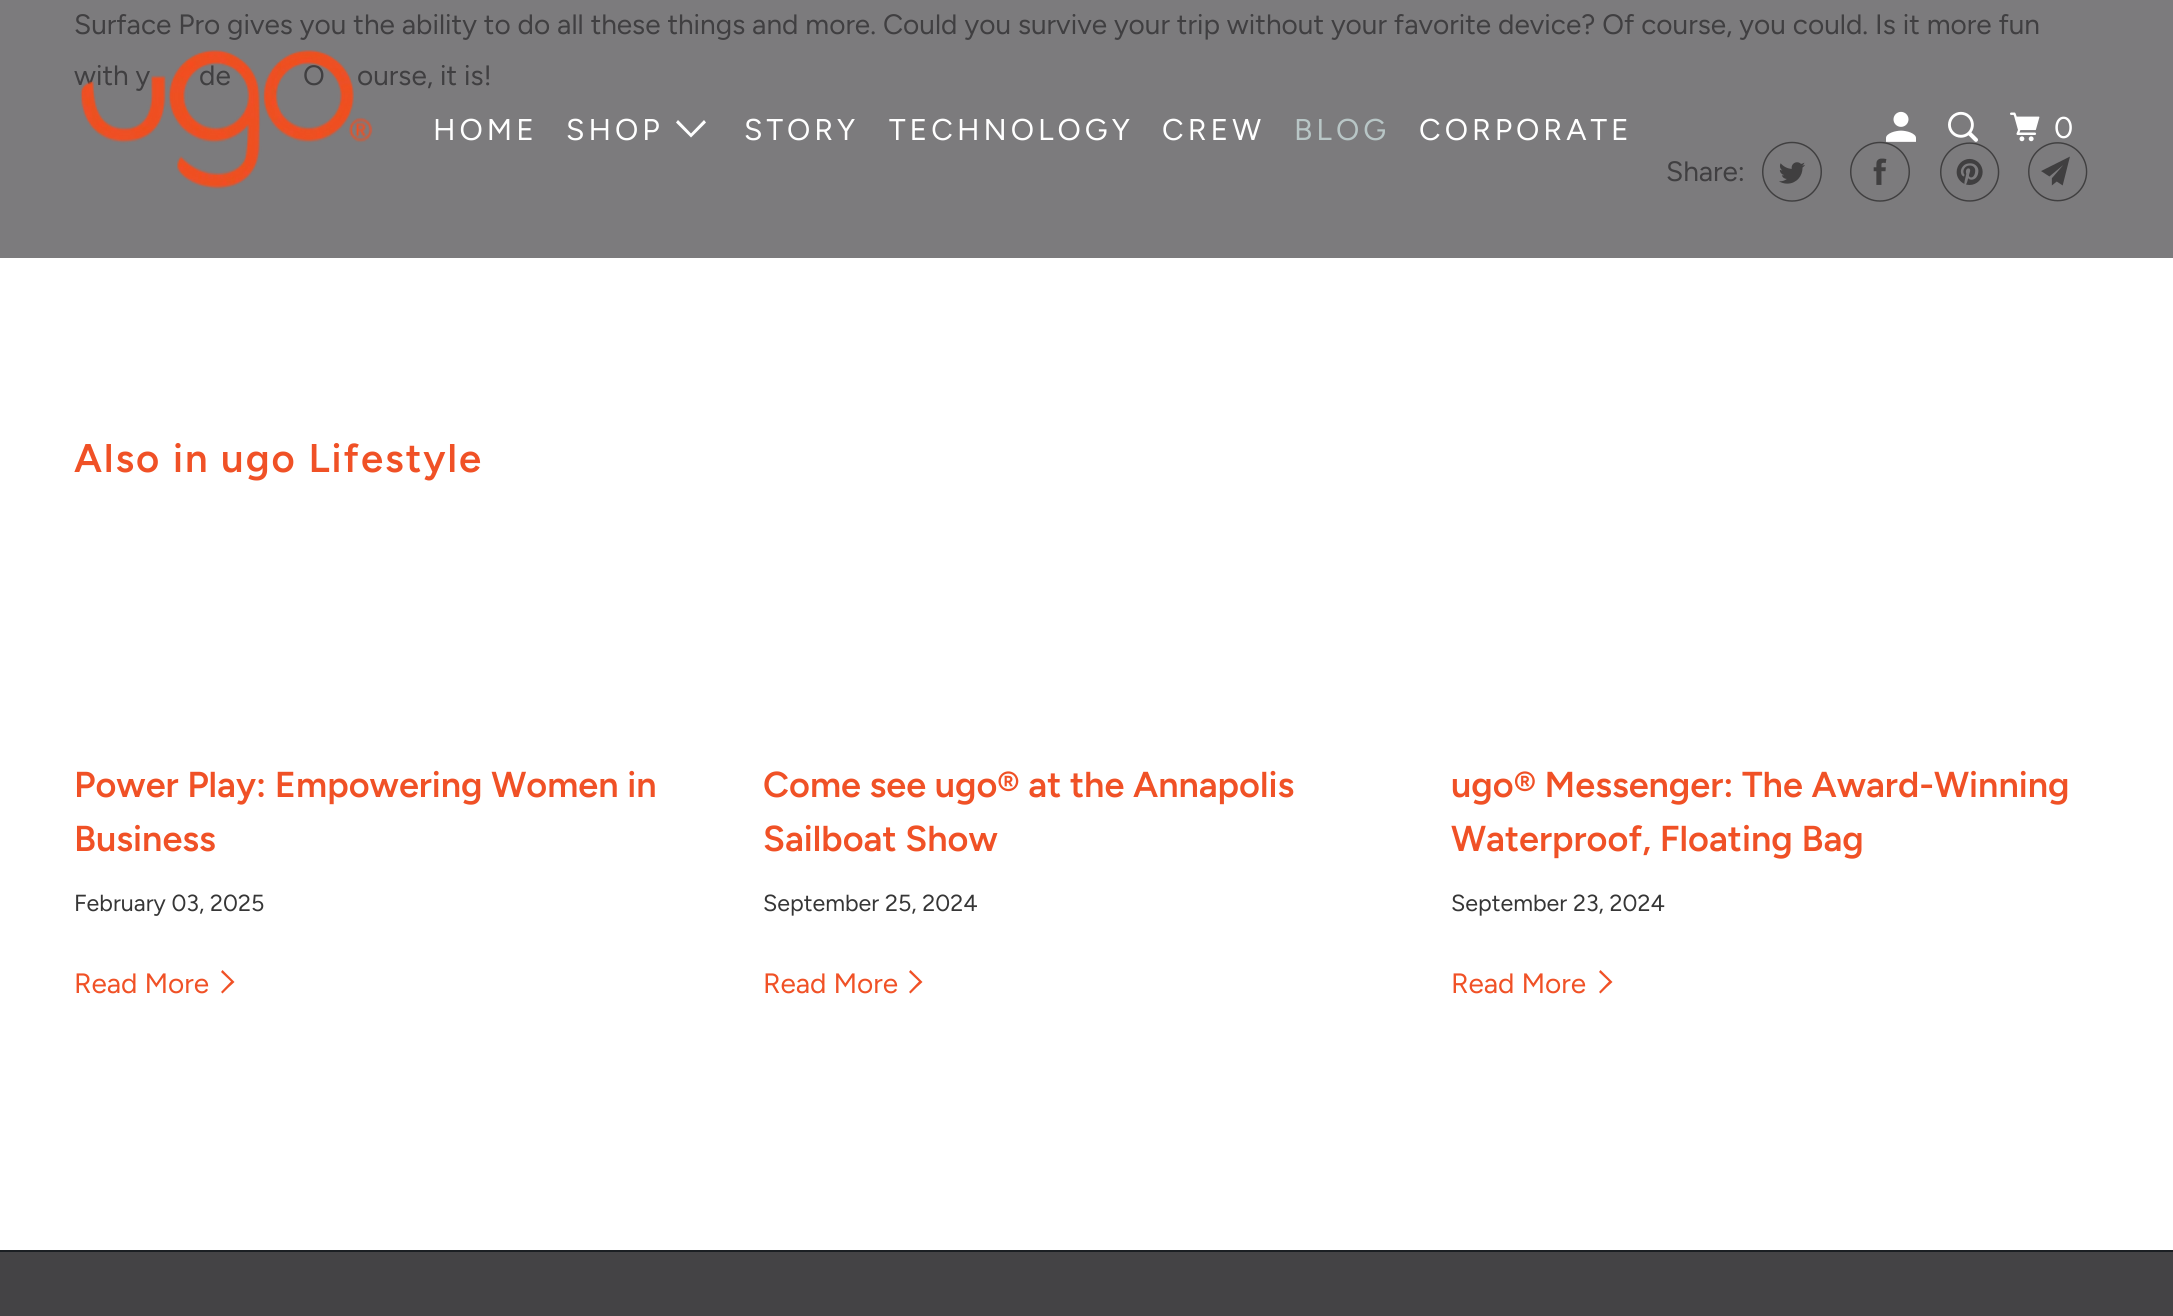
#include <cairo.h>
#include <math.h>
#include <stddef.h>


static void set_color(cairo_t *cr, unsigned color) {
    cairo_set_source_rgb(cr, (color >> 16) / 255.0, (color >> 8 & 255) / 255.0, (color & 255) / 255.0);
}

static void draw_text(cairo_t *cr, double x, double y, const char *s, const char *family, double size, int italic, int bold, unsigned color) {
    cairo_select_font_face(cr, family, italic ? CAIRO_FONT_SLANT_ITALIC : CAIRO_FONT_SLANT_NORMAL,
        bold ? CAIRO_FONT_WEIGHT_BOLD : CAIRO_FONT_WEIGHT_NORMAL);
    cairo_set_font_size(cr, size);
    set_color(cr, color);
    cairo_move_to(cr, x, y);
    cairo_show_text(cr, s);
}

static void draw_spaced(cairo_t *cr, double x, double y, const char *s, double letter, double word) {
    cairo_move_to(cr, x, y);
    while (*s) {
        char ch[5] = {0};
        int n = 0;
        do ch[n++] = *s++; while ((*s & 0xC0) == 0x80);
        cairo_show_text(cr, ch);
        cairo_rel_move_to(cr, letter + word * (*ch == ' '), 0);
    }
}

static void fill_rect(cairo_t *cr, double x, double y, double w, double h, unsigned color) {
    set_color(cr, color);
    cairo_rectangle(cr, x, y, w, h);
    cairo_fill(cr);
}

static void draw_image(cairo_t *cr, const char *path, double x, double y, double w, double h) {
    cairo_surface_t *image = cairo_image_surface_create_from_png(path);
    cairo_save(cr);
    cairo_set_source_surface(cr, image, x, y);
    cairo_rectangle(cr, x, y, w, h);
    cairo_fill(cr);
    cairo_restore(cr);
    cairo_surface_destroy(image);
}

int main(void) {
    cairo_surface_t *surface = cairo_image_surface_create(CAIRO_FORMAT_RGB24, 2173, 1316);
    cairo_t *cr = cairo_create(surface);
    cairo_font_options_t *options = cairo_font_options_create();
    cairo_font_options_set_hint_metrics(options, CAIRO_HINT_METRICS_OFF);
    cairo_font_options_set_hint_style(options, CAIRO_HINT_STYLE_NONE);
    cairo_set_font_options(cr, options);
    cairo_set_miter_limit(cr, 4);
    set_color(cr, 0xFFFFFF);
    cairo_paint(cr);
    fill_rect(cr, 0, 0, 2173, 258, 0x7C7B7D);
    draw_text(cr, 74, 34, "Surface Pro gives you the ability to do all these things and more. Could you survive your trip without your favorite device? Of course, you could. Is it more fun", "Figtree", 28, 0, 0, 0x403F41);
    draw_text(cr, 74, 85, "with y", "Figtree", 28, 0, 0, 0x403F41);
    draw_text(cr, 199, 85, "de", "Figtree", 28, 0, 0, 0x403F41);
    draw_text(cr, 303, 85, "O", "Figtree", 28, 0, 0, 0x403F41);
    draw_text(cr, 357, 85, "ourse, it is!", "Figtree", 28, 0, 0, 0x403F41);
    draw_text(cr, 1666, 181, "Share:", "Figtree", 28, 0, 0, 0x403F41);
    draw_image(cr, "assets/img1.png", 1762, 141, 60, 61);
    draw_image(cr, "assets/img2.png", 1850, 141, 60, 61);
    draw_image(cr, "assets/img3.png", 1940, 142, 60, 60);
    draw_image(cr, "assets/img4.png", 2028, 142, 60, 60);
    cairo_select_font_face(cr, "Figtree SemiBold", CAIRO_FONT_SLANT_NORMAL, CAIRO_FONT_WEIGHT_NORMAL);
    cairo_set_font_size(cr, 40);
    set_color(cr, 0xF05126);
    draw_spaced(cr, 74, 472, "Also in ugo Lifestyle", 2, 0);
    draw_text(cr, 74, 797, "Power Play: Empowering Women in", "Figtree SemiBold", 36, 0, 0, 0xF05126);
    draw_text(cr, 74, 851, "Business", "Figtree SemiBold", 36, 0, 0, 0xF05126);
    draw_text(cr, 74, 911, "February 03, 2025", "Figtree", 23.25, 0, 0, 0x363636);
    draw_text(cr, 74, 993, "Read More", "Figtree", 28, 0, 0, 0xF05126);
    cairo_new_path(cr);
    cairo_move_to(cr, 228.5, 987.5);
    cairo_line_to(cr, 222.5, 993.5);
    cairo_line_to(cr, 221, 992);
    cairo_line_to(cr, 231, 981.5);
    cairo_line_to(cr, 221, 972);
    cairo_line_to(cr, 222.5, 970);
    cairo_line_to(cr, 234.5, 982);
    cairo_close_path(cr);
    cairo_fill(cr);
    draw_text(cr, 763, 797, "Come see ugo® at the Annapolis", "Figtree SemiBold", 36, 0, 0, 0xF05126);
    draw_text(cr, 763, 851, "Sailboat Show", "Figtree SemiBold", 36, 0, 0, 0xF05126);
    draw_text(cr, 763, 911, "September 25, 2024", "Figtree", 23.25, 0, 0, 0x363636);
    draw_text(cr, 763, 993, "Read More", "Figtree", 28, 0, 0, 0xF05126);
    cairo_new_path(cr);
    cairo_move_to(cr, 916.5, 987.5);
    cairo_line_to(cr, 910.5, 993.5);
    cairo_line_to(cr, 909, 992);
    cairo_line_to(cr, 919, 981.5);
    cairo_line_to(cr, 909, 972);
    cairo_line_to(cr, 910.5, 970);
    cairo_line_to(cr, 922.5, 982);
    cairo_close_path(cr);
    cairo_fill(cr);
    draw_text(cr, 1451, 797, "ugo® Messenger: The Award-Winning", "Figtree SemiBold", 36, 0, 0, 0xF05126);
    draw_text(cr, 1451, 851, "Waterproof, Floating Bag", "Figtree SemiBold", 36, 0, 0, 0xF05126);
    draw_text(cr, 1451, 911, "September 23, 2024", "Figtree", 23.25, 0, 0, 0x363636);
    draw_text(cr, 1451, 993, "Read More", "Figtree", 28, 0, 0, 0xF05126);
    cairo_new_path(cr);
    cairo_move_to(cr, 1606.5, 987.5);
    cairo_line_to(cr, 1600.5, 993.5);
    cairo_line_to(cr, 1599, 992);
    cairo_line_to(cr, 1609, 981.5);
    cairo_line_to(cr, 1599, 972);
    cairo_line_to(cr, 1600.5, 970);
    cairo_line_to(cr, 1612.5, 982);
    cairo_close_path(cr);
    cairo_fill(cr);
    draw_image(cr, "assets/img5.png", 80, 50, 293, 139);
    cairo_set_font_size(cr, 30);
    set_color(cr, 0xFFFFFF);
    draw_spaced(cr, 433, 140, "HOME", 4, 0);
    draw_spaced(cr, 566, 140, "SHOP", 4, 0);
    cairo_new_path(cr);
    cairo_move_to(cr, 683.5, 130);
    cairo_line_to(cr, 676, 122.5);
    cairo_line_to(cr, 678, 120);
    cairo_line_to(cr, 691, 133.5);
    cairo_line_to(cr, 704, 120);
    cairo_line_to(cr, 706, 122.5);
    cairo_line_to(cr, 691, 137.5);
    cairo_close_path(cr);
    cairo_fill(cr);
    draw_spaced(cr, 744, 140, "STORY", 4, 0);
    draw_spaced(cr, 889, 140, "TECHNOLOGY", 4, 0);
    draw_spaced(cr, 1162, 140, "CREW", 4, 0);
    set_color(cr, 0xB8C6C6);
    draw_spaced(cr, 1294, 140, "BLOG", 4, 0);
    set_color(cr, 0xFFFFFF);
    draw_spaced(cr, 1419, 140, "CORPORATE", 4, 0);
    draw_image(cr, "assets/img6.png", 1886, 111, 30, 31);
    draw_image(cr, "assets/img7.png", 1948, 111, 30, 31);
    draw_image(cr, "assets/img8.png", 2010, 112, 30, 30);
    draw_spaced(cr, 2054, 138, "0", 4, 0);
    fill_rect(cr, 0, 1252, 2173, 64, 0x444345);
    fill_rect(cr, 0, 1250, 2173, 2, 0x1B1F23);
    cairo_surface_write_to_png(surface, "output.png");
    cairo_font_options_destroy(options);
    cairo_destroy(cr);
    cairo_surface_destroy(surface);
    return 0;
}
